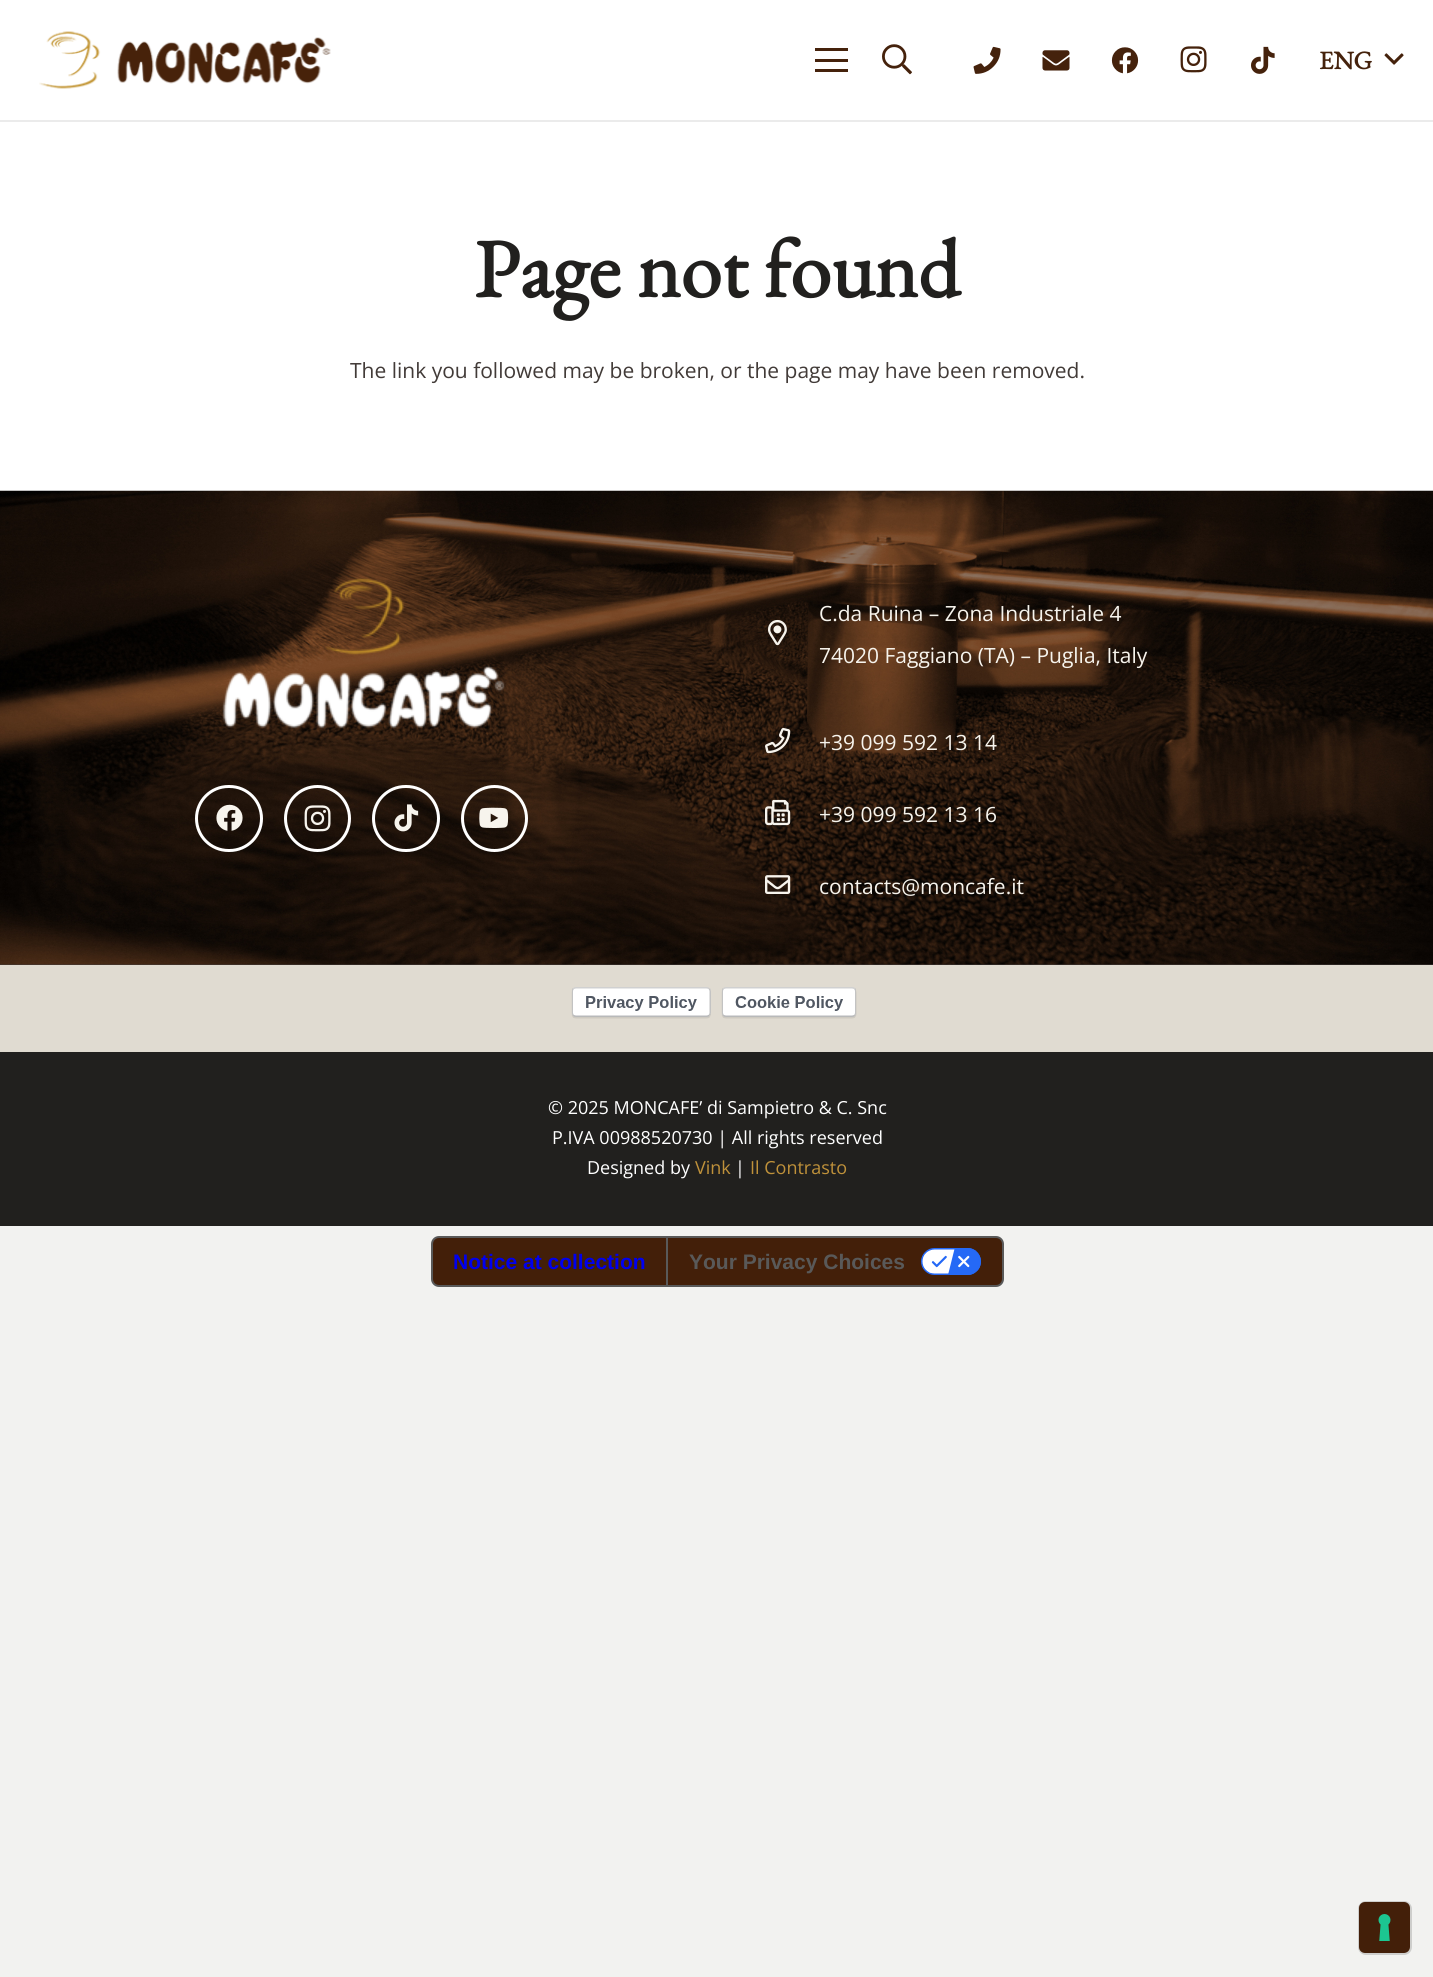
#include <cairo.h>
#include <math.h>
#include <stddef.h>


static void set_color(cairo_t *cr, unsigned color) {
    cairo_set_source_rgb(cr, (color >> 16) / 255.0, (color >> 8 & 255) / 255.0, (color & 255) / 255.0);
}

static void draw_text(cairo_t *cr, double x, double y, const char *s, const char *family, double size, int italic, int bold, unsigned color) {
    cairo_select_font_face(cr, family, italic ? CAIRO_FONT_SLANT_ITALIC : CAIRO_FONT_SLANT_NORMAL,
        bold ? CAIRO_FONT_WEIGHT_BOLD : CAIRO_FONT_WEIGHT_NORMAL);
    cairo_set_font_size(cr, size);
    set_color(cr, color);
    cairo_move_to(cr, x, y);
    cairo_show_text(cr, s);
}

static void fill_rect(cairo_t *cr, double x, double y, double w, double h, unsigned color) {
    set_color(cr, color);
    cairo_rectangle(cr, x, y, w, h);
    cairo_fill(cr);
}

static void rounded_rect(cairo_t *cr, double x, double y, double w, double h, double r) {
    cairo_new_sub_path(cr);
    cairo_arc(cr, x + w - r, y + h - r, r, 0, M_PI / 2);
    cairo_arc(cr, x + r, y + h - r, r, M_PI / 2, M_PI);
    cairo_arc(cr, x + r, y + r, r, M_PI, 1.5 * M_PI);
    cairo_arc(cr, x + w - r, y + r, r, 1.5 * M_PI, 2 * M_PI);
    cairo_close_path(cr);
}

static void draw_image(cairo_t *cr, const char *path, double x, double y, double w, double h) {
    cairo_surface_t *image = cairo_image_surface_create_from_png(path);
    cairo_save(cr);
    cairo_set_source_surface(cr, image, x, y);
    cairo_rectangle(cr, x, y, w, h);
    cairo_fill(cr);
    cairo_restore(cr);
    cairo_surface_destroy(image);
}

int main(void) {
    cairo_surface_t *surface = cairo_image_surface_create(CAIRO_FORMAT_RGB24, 1433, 1977);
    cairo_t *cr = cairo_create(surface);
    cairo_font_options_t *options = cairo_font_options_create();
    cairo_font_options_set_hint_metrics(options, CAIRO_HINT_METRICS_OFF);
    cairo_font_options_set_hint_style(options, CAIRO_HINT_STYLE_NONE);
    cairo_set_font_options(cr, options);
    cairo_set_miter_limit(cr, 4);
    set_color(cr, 0xF2F2F0);
    cairo_paint(cr);
    fill_rect(cr, 0, 0, 1433, 491, 0xFFFFFF);
    fill_rect(cr, 0, 120, 1433, 2, 0xEBEBEB);
    draw_image(cr, "assets/img1.png", 39, 31, 292, 58);
    fill_rect(cr, 815, 59, 33, 3, 0x45220C);
    fill_rect(cr, 815, 48, 33, 3, 0x45220C);
    fill_rect(cr, 815, 69, 33, 3, 0x45220C);
    draw_image(cr, "assets/img2.png", 882, 44, 30, 31);
    draw_image(cr, "assets/img3.png", 973, 46, 28, 28);
    draw_image(cr, "assets/img4.png", 1042, 50, 28, 21);
    draw_image(cr, "assets/img5.png", 1111, 47, 28, 27);
    draw_image(cr, "assets/img6.png", 1180, 46, 27, 27);
    draw_image(cr, "assets/img7.png", 1251, 46, 24, 28);
    draw_text(cr, 1319, 69, "ENG", "EB Garamond", 25.5, 0, 1, 0x45220C);
    draw_image(cr, "assets/img8.png", 1384, 53, 20, 12);
    draw_text(cr, 474, 297, "Page not found", "EB Garamond", 82.5, 0, 1, 0x21201E);
    draw_text(cr, 350, 378, "The link you followed may be broken, or the page may have been removed.", "Open Sans", 21, 0, 0, 0x423B38);
    fill_rect(cr, 0, 964, 1433, 1, 0x423B38);
    draw_image(cr, "assets/img9.png", 0, 490, 1433, 475);
    draw_image(cr, "assets/img10.png", 222, 578, 283, 151);
    rounded_rect(cr, 196.5, 786.5, 65, 64, 32);
    set_color(cr, 0xFFFFFF);
    cairo_set_line_width(cr, 3);
    cairo_stroke(cr);
    draw_image(cr, "assets/img11.png", 216, 804, 27, 27);
    cairo_arc(cr, 317.5, 818.5, 32, 0, 2 * M_PI);
    cairo_stroke(cr);
    draw_image(cr, "assets/img12.png", 304, 805, 27, 27);
    rounded_rect(cr, 373.5, 786.5, 65, 64, 32);
    cairo_stroke(cr);
    draw_image(cr, "assets/img13.png", 394, 804, 25, 28);
    cairo_arc(cr, 494.5, 818.5, 32, 0, 2 * M_PI);
    cairo_stroke(cr);
    draw_image(cr, "assets/img14.png", 479, 807, 30, 21);
    draw_image(cr, "assets/img15.png", 768, 619, 19, 27);
    draw_text(cr, 819, 621, "C.da Ruina – Zona Industriale 4", "Open Sans", 21, 0, 0, 0xF7F4ED);
    draw_text(cr, 819, 663, "74020 Faggiano (TA) – Puglia, Italy", "Open Sans", 21, 0, 0, 0xF7F4ED);
    draw_image(cr, "assets/img16.png", 765, 727, 26, 27);
    draw_text(cr, 819, 750, "+39 099 592 13 14", "Open Sans", 21, 0, 0, 0xF7F4ED);
    draw_image(cr, "assets/img17.png", 765, 799, 26, 27);
    draw_text(cr, 819, 822, "+39 099 592 13 16", "Open Sans", 21, 0, 0, 0xF7F4ED);
    draw_image(cr, "assets/img18.png", 765, 875, 26, 19);
    draw_text(cr, 819, 894, "contacts@moncafe.it", "Open Sans", 21, 0, 0, 0xF7F4ED);
    fill_rect(cr, 0, 965, 1433, 87, 0xE0DBD1);
    draw_image(cr, "assets/img19.png", 571, 987, 140, 32);
    draw_image(cr, "assets/img20.png", 721, 987, 136, 32);
    fill_rect(cr, 0, 1052, 1433, 174, 0x21201E);
    draw_text(cr, 548, 1114, "© 2025 MONCAFE’ di Sampietro & C. Snc", "Open Sans", 18, 0, 0, 0xFFFFFF);
    draw_text(cr, 552, 1144, "P.IVA 00988520730 | All rights reserved", "Open Sans", 18, 0, 0, 0xFFFFFF);
    draw_text(cr, 587, 1174, "Designed by", "Open Sans", 18, 0, 0, 0xFFFFFF);
    draw_text(cr, 695, 1174, "Vink", "Open Sans", 18, 0, 0, 0xBF913A);
    draw_text(cr, 735, 1174, "|", "Open Sans", 18, 0, 0, 0xFFFFFF);
    draw_text(cr, 750, 1174, "Il Contrasto", "Open Sans", 18, 0, 0, 0xBF913A);
    set_color(cr, 0x431F09);
    rounded_rect(cr, 432, 1237, 571, 49, 7);
    cairo_fill_preserve(cr);
    set_color(cr, 0x595959);
    cairo_set_line_width(cr, 2);
    cairo_stroke(cr);
    draw_text(cr, 453, 1269, "Notice at collection", "Liberation Sans", 21, 0, 1, 0x0000EE);
    fill_rect(cr, 666, 1238, 2, 48, 0x595959);
    draw_text(cr, 689, 1269, "Your Privacy Choices", "Liberation Sans", 21, 0, 1, 0x595959);
    draw_image(cr, "assets/img21.png", 921, 1248, 60, 27);
    rounded_rect(cr, 1359, 1902, 52, 52, 7);
    set_color(cr, 0xCECECC);
    cairo_stroke(cr);
    set_color(cr, 0x431F09);
    rounded_rect(cr, 1359, 1902, 51, 51, 6);
    cairo_fill(cr);
    draw_image(cr, "assets/img22.png", 1378, 1914, 13, 27);
    cairo_surface_write_to_png(surface, "output.png");
    cairo_font_options_destroy(options);
    cairo_destroy(cr);
    cairo_surface_destroy(surface);
    return 0;
}
